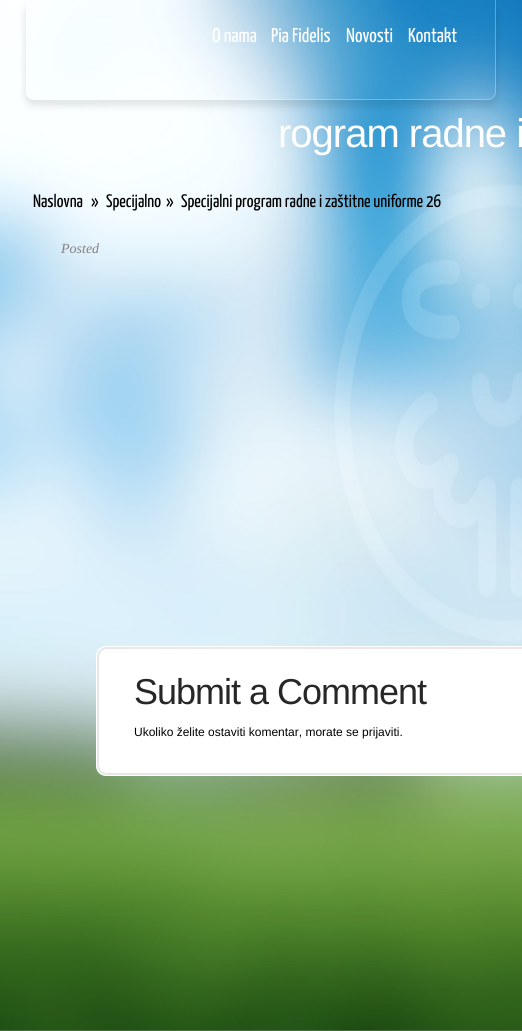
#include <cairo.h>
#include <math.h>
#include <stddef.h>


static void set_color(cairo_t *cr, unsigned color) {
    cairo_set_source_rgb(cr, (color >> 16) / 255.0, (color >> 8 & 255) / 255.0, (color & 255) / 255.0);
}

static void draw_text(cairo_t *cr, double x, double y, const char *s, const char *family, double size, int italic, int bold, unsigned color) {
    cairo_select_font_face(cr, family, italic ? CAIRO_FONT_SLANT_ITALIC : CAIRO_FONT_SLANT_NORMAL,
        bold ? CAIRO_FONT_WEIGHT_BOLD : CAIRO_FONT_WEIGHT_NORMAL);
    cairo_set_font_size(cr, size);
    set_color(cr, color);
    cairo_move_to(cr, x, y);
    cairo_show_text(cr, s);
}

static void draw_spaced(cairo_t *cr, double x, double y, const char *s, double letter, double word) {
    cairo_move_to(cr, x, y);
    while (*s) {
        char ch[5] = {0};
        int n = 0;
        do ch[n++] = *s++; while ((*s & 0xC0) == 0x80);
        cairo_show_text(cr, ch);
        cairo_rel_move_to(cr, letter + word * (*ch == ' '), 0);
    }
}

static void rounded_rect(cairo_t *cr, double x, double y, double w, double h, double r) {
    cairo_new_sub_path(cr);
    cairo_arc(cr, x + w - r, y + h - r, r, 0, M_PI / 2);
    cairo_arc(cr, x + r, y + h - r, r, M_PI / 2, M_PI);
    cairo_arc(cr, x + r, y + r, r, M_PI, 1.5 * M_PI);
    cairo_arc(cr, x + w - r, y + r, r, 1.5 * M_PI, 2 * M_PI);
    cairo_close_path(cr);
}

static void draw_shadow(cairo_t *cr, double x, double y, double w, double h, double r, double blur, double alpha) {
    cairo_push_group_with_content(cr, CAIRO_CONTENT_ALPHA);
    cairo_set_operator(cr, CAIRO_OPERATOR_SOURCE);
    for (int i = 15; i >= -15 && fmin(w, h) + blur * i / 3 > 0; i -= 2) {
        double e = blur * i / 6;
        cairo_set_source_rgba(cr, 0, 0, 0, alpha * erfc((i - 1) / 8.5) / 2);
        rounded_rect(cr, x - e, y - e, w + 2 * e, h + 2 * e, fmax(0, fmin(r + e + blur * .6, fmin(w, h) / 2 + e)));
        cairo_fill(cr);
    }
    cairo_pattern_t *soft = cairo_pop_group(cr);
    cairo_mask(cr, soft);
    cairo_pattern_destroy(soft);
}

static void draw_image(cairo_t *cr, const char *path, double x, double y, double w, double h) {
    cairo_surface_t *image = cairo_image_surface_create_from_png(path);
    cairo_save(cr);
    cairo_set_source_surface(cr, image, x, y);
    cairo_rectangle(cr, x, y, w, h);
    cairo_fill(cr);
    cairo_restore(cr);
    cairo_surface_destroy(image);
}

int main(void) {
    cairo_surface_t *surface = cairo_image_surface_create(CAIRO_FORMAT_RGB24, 522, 1031);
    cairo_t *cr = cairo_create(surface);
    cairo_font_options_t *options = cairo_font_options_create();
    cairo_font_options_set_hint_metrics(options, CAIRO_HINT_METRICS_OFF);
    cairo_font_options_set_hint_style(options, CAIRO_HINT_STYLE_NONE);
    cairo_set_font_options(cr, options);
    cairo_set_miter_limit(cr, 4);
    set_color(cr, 0xFFFFFF);
    cairo_paint(cr);
    draw_image(cr, "assets/img1.png", 0, 0, 522, 1031);
    cairo_save(cr);
    cairo_set_fill_rule(cr, CAIRO_FILL_RULE_EVEN_ODD);
    cairo_new_path(cr);
    cairo_move_to(cr, 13, 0);
    cairo_line_to(cr, 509, 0);
    cairo_line_to(cr, 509, 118);
    cairo_line_to(cr, 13, 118);
    cairo_close_path(cr);
    cairo_move_to(cr, 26, 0);
    cairo_line_to(cr, 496, 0);
    cairo_line_to(cr, 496, 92);
    cairo_curve_to(cr, 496, 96.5, 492.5, 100, 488, 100);
    cairo_line_to(cr, 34, 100);
    cairo_curve_to(cr, 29.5, 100, 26, 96.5, 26, 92);
    cairo_close_path(cr);
    cairo_clip(cr);
    set_color(cr, 0x000000);
    draw_shadow(cr, 25, 4, 472, 102, 9, 3.5, 0.1);
    cairo_restore(cr);
    cairo_set_source_rgba(cr, 1, 1, 1, 0.3);
    cairo_set_fill_rule(cr, CAIRO_FILL_RULE_EVEN_ODD);
    cairo_new_path(cr);
    cairo_move_to(cr, 26, 0);
    cairo_line_to(cr, 496, 0);
    cairo_line_to(cr, 496, 92);
    cairo_curve_to(cr, 496, 96, 492, 100, 488, 100);
    cairo_line_to(cr, 34, 100);
    cairo_curve_to(cr, 30, 100, 26, 96, 26, 92);
    cairo_close_path(cr);
    cairo_move_to(cr, 27, 0);
    cairo_line_to(cr, 495, 0);
    cairo_line_to(cr, 495, 92);
    cairo_curve_to(cr, 495, 96, 492, 99, 488, 99);
    cairo_line_to(cr, 34, 99);
    cairo_curve_to(cr, 30, 99, 27, 96, 27, 92);
    cairo_close_path(cr);
    cairo_fill(cr);
    draw_text(cr, 212, 42, "O nama", "Yanone Kaffeesatz", 20, 0, 0, 0xFFFFFF);
    draw_text(cr, 271, 42, "Pia Fidelis", "Yanone Kaffeesatz", 20, 0, 0, 0xFFFFFF);
    draw_text(cr, 346, 42, "Novosti", "Yanone Kaffeesatz", 20, 0, 0, 0xFFFFFF);
    draw_text(cr, 408, 42, "Kontakt", "Yanone Kaffeesatz", 20, 0, 0, 0xFFFFFF);
    cairo_select_font_face(cr, "Liberation Sans", CAIRO_FONT_SLANT_NORMAL, CAIRO_FONT_WEIGHT_NORMAL);
    cairo_set_font_size(cr, 40);
    draw_spaced(cr, 278, 147, "rogram radne i", -1, 0);
    draw_text(cr, 33, 207, "Naslovna", "Yanone Kaffeesatz", 18, 0, 0, 0x000000);
    draw_text(cr, 91, 207, "»", "Yanone Kaffeesatz", 18, 0, 0, 0x000000);
    draw_text(cr, 106, 207, "Specijalno", "Yanone Kaffeesatz", 18, 0, 0, 0x000000);
    draw_text(cr, 166, 207, "»", "Yanone Kaffeesatz", 18, 0, 0, 0x000000);
    draw_text(cr, 181, 207, "Specijalni program radne i zaštitne uniforme 26", "Yanone Kaffeesatz", 18, 0, 0, 0x000000);
    draw_text(cr, 61, 253, "Posted", "Liberation Serif", 14, 1, 0, 0x838383);
    set_color(cr, 0xFFFFFF);
    rounded_rect(cr, 96, 646, 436, 130, 10);
    cairo_fill(cr);
    rounded_rect(cr, 98, 648, 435, 126, 9);
    set_color(cr, 0xE7E7E7);
    cairo_stroke(cr);
    cairo_select_font_face(cr, "Liberation Sans", CAIRO_FONT_SLANT_NORMAL, CAIRO_FONT_WEIGHT_NORMAL);
    cairo_set_font_size(cr, 36);
    set_color(cr, 0x282727);
    draw_spaced(cr, 134, 704, "Submit a Comment", -1, 0);
    draw_text(cr, 134, 736, "Ukoliko želite ostaviti komentar, morate se prijaviti.", "Liberation Sans", 12, 0, 0, 0x000000);
    cairo_surface_write_to_png(surface, "output.png");
    cairo_font_options_destroy(options);
    cairo_destroy(cr);
    cairo_surface_destroy(surface);
    return 0;
}
